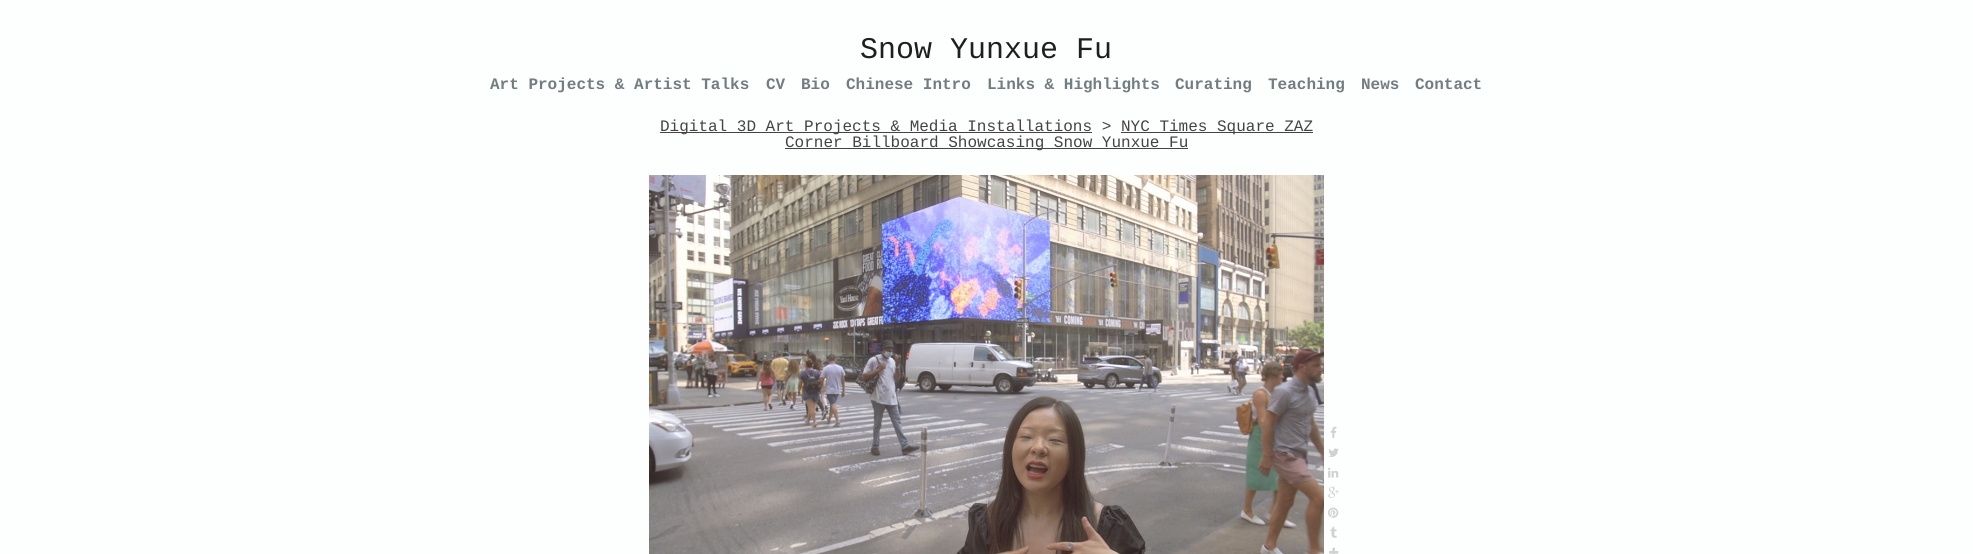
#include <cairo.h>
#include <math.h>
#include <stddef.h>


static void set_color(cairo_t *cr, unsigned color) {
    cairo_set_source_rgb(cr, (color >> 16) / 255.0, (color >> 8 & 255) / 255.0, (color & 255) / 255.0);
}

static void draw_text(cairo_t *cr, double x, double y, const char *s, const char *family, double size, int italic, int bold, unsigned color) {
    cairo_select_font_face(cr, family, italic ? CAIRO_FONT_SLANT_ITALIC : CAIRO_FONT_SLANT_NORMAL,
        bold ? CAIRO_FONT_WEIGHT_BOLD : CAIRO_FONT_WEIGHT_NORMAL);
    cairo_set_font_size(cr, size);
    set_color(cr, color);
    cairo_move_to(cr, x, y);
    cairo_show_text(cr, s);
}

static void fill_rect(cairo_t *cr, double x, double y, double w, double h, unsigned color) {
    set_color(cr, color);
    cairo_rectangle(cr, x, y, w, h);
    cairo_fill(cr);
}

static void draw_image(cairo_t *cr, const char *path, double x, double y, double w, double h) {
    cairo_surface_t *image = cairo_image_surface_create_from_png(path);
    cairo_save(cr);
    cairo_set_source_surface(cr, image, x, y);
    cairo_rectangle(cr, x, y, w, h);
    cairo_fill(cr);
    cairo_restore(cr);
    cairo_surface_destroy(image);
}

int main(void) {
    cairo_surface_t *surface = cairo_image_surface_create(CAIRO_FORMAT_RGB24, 1973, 554);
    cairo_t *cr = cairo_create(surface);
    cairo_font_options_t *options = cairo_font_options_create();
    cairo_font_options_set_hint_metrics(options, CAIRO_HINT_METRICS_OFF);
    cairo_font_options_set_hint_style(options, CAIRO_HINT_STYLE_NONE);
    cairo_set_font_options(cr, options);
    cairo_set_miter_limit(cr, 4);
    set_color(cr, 0xFDFEFE);
    cairo_paint(cr);
    draw_text(cr, 860, 58, "Snow Yunxue Fu", "Liberation Mono", 30, 0, 0, 0x1E1F1F);
    draw_text(cr, 490, 89, "Art Projects & Artist Talks", "Liberation Mono", 16, 0, 1, 0x727D80);
    draw_text(cr, 766, 89, "CV", "Liberation Mono", 16, 0, 1, 0x727D80);
    draw_text(cr, 801, 89, "Bio", "Liberation Mono", 16, 0, 1, 0x727D80);
    draw_text(cr, 846, 89, "Chinese Intro", "Liberation Mono", 16, 0, 1, 0x727D80);
    draw_text(cr, 987, 89, "Links & Highlights", "Liberation Mono", 16, 0, 1, 0x727D80);
    draw_text(cr, 1175, 89, "Curating", "Liberation Mono", 16, 0, 1, 0x727D80);
    draw_text(cr, 1268, 89, "Teaching", "Liberation Mono", 16, 0, 1, 0x727D80);
    draw_text(cr, 1361, 89, "News", "Liberation Mono", 16, 0, 1, 0x727D80);
    draw_text(cr, 1415, 89, "Contact", "Liberation Mono", 16, 0, 1, 0x727D80);
    fill_rect(cr, 660, 132, 432, 1, 0x454343);
    draw_text(cr, 660, 131, "Digital 3D Art Projects & Media Installations >", "Liberation Mono", 16, 0, 0, 0x454343);
    fill_rect(cr, 1121, 132, 192, 1, 0x454343);
    draw_text(cr, 1121, 131, "NYC Times Square ZAZ", "Liberation Mono", 16, 0, 0, 0x454343);
    fill_rect(cr, 785, 148, 403, 1, 0x454343);
    draw_text(cr, 785, 147, "Corner Billboard Showcasing Snow Yunxue Fu", "Liberation Mono", 16, 0, 0, 0x454343);
    draw_image(cr, "assets/img1.png", 649, 175, 675, 379);
    draw_image(cr, "assets/img2.png", 1330, 426, 7, 12);
    draw_image(cr, "assets/img3.png", 1328, 448, 11, 9);
    draw_image(cr, "assets/img4.png", 1328, 467, 11, 11);
    draw_image(cr, "assets/img5.png", 1328, 486, 11, 12);
    draw_image(cr, "assets/img6.png", 1328, 507, 11, 11);
    draw_image(cr, "assets/img7.png", 1330, 526, 7, 12);
    draw_image(cr, "assets/img8.png", 1329, 547, 10, 7);
    cairo_surface_write_to_png(surface, "output.png");
    cairo_font_options_destroy(options);
    cairo_destroy(cr);
    cairo_surface_destroy(surface);
    return 0;
}
